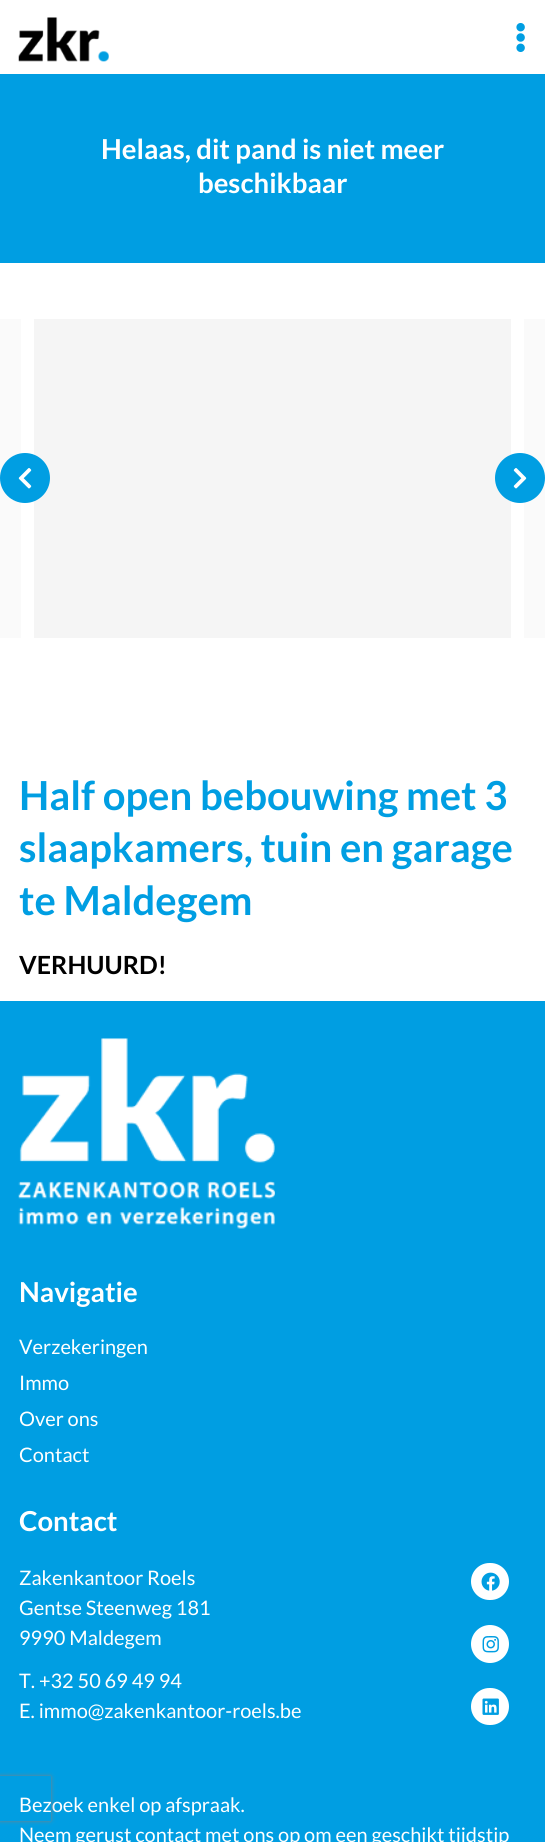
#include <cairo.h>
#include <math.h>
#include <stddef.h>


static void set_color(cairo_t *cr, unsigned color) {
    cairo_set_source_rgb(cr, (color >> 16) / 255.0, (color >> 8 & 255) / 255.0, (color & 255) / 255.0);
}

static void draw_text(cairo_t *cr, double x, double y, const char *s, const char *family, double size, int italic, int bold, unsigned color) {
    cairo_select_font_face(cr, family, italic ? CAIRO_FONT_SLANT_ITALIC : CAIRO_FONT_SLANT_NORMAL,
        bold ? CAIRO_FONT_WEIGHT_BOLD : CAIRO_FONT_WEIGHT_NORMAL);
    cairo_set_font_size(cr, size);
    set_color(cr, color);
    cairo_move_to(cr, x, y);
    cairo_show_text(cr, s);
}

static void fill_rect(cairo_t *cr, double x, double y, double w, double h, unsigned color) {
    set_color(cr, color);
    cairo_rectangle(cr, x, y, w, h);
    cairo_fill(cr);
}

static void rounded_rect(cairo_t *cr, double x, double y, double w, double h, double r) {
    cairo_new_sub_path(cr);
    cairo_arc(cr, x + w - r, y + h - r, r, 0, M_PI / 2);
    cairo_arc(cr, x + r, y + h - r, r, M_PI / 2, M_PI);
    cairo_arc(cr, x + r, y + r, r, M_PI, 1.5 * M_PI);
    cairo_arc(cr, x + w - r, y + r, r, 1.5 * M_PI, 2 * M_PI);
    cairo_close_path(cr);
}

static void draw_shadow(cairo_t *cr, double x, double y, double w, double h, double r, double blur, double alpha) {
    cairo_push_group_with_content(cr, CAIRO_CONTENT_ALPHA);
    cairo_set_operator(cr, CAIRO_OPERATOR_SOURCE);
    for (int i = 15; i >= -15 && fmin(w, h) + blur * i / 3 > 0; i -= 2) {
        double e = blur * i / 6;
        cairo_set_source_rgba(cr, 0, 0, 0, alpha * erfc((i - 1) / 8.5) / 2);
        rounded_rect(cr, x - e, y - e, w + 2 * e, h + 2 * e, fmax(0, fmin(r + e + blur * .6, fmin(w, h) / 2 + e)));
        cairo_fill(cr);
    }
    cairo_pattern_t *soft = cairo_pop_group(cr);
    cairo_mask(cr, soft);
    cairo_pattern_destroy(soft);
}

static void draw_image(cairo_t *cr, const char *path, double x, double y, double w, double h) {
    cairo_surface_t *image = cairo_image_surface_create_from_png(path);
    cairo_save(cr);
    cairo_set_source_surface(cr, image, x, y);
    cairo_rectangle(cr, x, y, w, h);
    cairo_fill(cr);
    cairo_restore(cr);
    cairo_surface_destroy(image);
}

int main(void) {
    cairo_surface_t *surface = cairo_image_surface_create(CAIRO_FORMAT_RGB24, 545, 1842);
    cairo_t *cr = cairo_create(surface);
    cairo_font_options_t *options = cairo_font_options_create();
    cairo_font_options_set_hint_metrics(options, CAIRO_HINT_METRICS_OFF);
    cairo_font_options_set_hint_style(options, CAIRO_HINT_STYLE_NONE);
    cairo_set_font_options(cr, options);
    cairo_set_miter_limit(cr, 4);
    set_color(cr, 0xFFFFFF);
    cairo_paint(cr);
    draw_image(cr, "assets/img1.png", 18, 17, 91, 45);
    draw_image(cr, "assets/img2.png", 516, 23, 9, 29);
    fill_rect(cr, 0, 74, 545, 189, 0x009EE2);
    draw_text(cr, 101, 159, "Helaas, dit pand is niet meer", "Lato", 27.5, 0, 1, 0xFFFFFF);
    draw_text(cr, 198, 193, "beschikbaar", "Lato", 27.5, 0, 1, 0xFFFFFF);
    fill_rect(cr, 0, 319, 21, 319, 0xFAFAFA);
    fill_rect(cr, 34, 319, 477, 319, 0xF5F5F5);
    fill_rect(cr, 524, 319, 21, 319, 0xFAFAFA);
    set_color(cr, 0x009EE2);
    cairo_new_path(cr);
    cairo_arc(cr, 25, 478, 25, 0, 2 * M_PI);
    cairo_fill(cr);
    draw_image(cr, "assets/img3.png", 18, 468, 14, 21);
    cairo_arc(cr, 520, 478, 25, 0, 2 * M_PI);
    cairo_fill(cr);
    draw_image(cr, "assets/img4.png", 513, 468, 14, 21);
    draw_text(cr, 19, 810, "Half open bebouwing met 3", "Lato", 40, 0, 1, 0x009EE2);
    draw_text(cr, 19, 862, "slaapkamers, tuin en garage", "Lato", 40, 0, 1, 0x009EE2);
    draw_text(cr, 19, 915, "te Maldegem", "Lato", 40, 0, 1, 0x009EE2);
    draw_text(cr, 19, 974, "VERHUURD!", "Lato", 25, 0, 1, 0x000000);
    fill_rect(cr, 0, 1001, 545, 841, 0x009EE2);
    draw_image(cr, "assets/img5.png", 18, 1038, 257, 191);
    draw_text(cr, 19, 1302, "Navigatie", "Lato", 27.5, 0, 1, 0xFFFFFF);
    draw_text(cr, 19, 1354, "Verzekeringen", "Lato", 20, 0, 0, 0xFFFFFF);
    draw_text(cr, 19, 1390, "Immo", "Lato", 20, 0, 0, 0xFFFFFF);
    draw_text(cr, 19, 1426, "Over ons", "Lato", 20, 0, 0, 0xFFFFFF);
    draw_text(cr, 19, 1462, "Contact", "Lato", 20, 0, 0, 0xFFFFFF);
    draw_text(cr, 19, 1531, "Contact", "Lato", 27.5, 0, 1, 0xFFFFFF);
    draw_text(cr, 19, 1585, "Zakenkantoor Roels", "Lato", 20, 0, 0, 0xFFFFFF);
    draw_text(cr, 19, 1615, "Gentse Steenweg 181", "Lato", 20, 0, 0, 0xFFFFFF);
    draw_text(cr, 19, 1645, "9990 Maldegem", "Lato", 20, 0, 0, 0xFFFFFF);
    draw_text(cr, 19, 1688, "T. +32 50 69 49 94", "Lato", 20, 0, 0, 0xFFFFFF);
    draw_text(cr, 19, 1718, "E. immo@zakenkantoor-roels.be", "Lato", 20, 0, 0, 0xFFFFFF);
    rounded_rect(cr, 471, 1563, 38, 37, 18.5);
    cairo_fill(cr);
    draw_image(cr, "assets/img6.png", 481, 1572, 19, 19);
    cairo_arc(cr, 490, 1644, 19, 0, 2 * M_PI);
    cairo_fill(cr);
    draw_image(cr, "assets/img7.png", 482, 1636, 17, 17);
    rounded_rect(cr, 471, 1688, 38, 37, 18.5);
    cairo_fill(cr);
    draw_image(cr, "assets/img8.png", 482, 1698, 17, 17);
    draw_text(cr, 19, 1812, "Bezoek enkel op afspraak.", "Lato", 20, 0, 0, 0xFFFFFF);
    draw_text(cr, 19, 1842, "Neem gerust contact met ons op om een geschikt tijdstip", "Lato", 20, 0, 0, 0xFFFFFF);
    cairo_save(cr);
    cairo_set_fill_rule(cr, CAIRO_FILL_RULE_EVEN_ODD);
    cairo_new_path(cr);
    cairo_move_to(cr, 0, 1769);
    cairo_line_to(cr, 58, 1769);
    cairo_line_to(cr, 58, 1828);
    cairo_line_to(cr, 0, 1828);
    cairo_close_path(cr);
    cairo_move_to(cr, 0, 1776);
    cairo_line_to(cr, 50, 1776);
    cairo_curve_to(cr, 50.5, 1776, 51, 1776.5, 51, 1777);
    cairo_line_to(cr, 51, 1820);
    cairo_curve_to(cr, 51, 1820.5, 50.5, 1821, 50, 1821);
    cairo_line_to(cr, 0, 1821);
    cairo_curve_to(cr, -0.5, 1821, -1, 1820.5, -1, 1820);
    cairo_line_to(cr, -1, 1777);
    cairo_curve_to(cr, -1, 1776.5, -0.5, 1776, 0, 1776);
    cairo_close_path(cr);
    cairo_clip(cr);
    set_color(cr, 0x808080);
    draw_shadow(cr, -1, 1776, 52, 45, 1, 2, 1);
    cairo_restore(cr);
    cairo_surface_write_to_png(surface, "output.png");
    cairo_font_options_destroy(options);
    cairo_destroy(cr);
    cairo_surface_destroy(surface);
    return 0;
}
